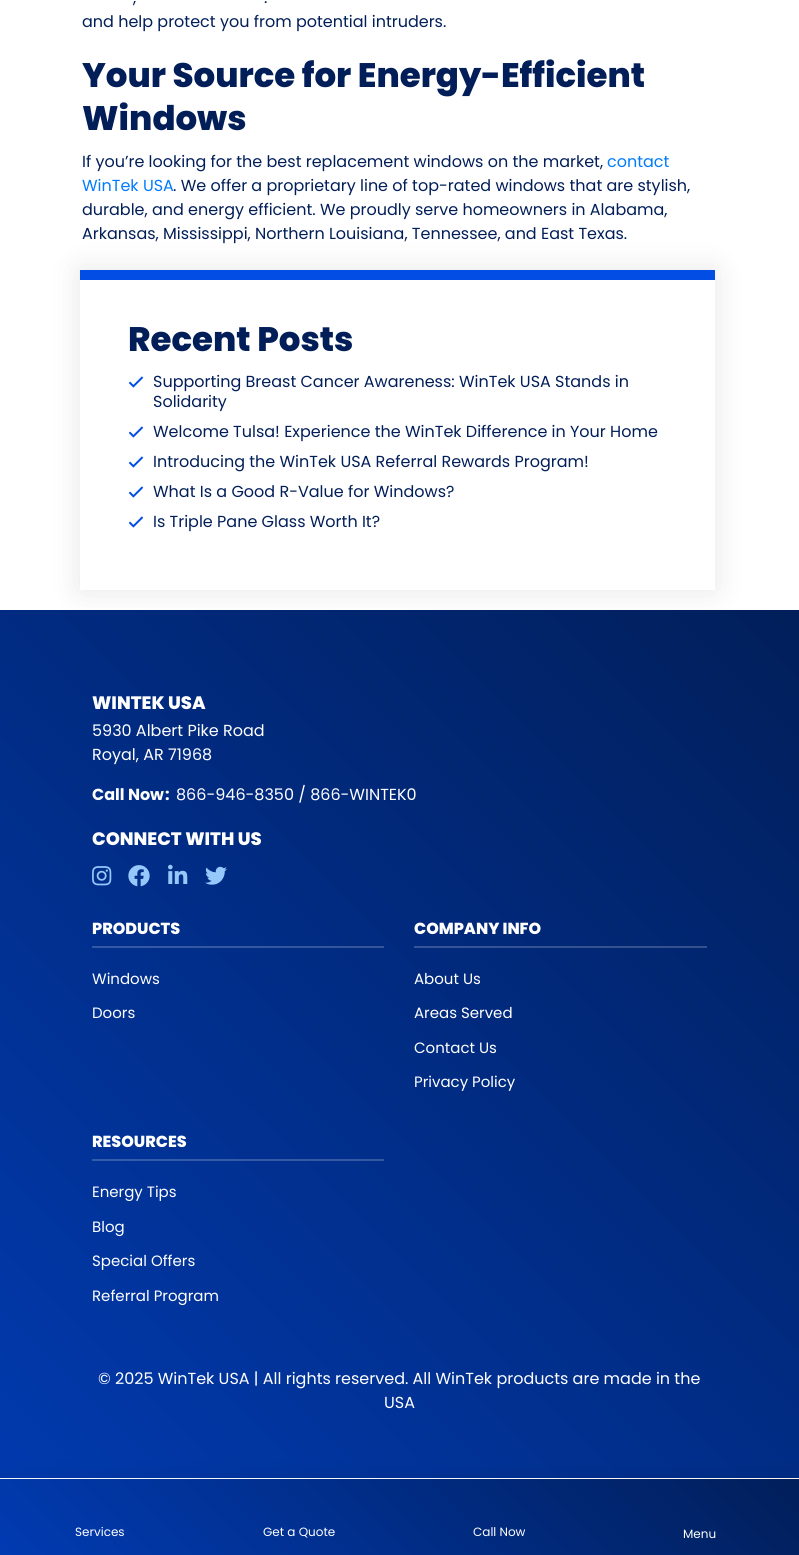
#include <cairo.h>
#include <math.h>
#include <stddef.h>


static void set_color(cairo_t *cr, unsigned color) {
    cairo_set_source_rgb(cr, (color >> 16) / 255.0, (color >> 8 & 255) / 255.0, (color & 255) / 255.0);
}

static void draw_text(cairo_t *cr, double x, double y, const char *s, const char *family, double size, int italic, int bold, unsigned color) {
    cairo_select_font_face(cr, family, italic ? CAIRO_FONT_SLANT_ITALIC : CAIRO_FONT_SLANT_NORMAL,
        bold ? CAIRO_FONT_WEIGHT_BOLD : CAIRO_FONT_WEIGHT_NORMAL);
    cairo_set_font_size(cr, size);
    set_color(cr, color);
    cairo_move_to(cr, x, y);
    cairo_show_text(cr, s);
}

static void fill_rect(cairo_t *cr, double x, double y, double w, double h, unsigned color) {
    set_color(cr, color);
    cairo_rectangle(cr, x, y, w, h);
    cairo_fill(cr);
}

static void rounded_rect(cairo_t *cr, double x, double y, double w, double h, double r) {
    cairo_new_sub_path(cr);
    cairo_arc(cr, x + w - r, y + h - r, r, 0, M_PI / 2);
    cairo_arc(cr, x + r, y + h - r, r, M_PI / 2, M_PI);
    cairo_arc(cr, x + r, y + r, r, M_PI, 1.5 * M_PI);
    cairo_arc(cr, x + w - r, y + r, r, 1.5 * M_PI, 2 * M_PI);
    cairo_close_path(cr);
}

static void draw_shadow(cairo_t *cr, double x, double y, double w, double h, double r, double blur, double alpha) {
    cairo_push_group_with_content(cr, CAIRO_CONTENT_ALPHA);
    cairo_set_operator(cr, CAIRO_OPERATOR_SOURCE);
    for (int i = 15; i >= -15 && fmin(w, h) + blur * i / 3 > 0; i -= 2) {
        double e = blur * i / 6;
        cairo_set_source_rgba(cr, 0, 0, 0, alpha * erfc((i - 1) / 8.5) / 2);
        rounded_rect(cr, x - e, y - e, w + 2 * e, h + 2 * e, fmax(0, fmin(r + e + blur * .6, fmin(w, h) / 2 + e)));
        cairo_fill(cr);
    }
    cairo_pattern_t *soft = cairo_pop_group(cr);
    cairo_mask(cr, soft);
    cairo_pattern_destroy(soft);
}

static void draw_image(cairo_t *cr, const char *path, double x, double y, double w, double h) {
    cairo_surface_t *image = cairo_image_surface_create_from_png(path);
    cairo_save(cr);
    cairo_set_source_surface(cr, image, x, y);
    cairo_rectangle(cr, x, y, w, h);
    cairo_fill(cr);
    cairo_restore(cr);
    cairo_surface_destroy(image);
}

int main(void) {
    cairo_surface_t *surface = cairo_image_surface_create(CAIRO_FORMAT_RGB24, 799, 1555);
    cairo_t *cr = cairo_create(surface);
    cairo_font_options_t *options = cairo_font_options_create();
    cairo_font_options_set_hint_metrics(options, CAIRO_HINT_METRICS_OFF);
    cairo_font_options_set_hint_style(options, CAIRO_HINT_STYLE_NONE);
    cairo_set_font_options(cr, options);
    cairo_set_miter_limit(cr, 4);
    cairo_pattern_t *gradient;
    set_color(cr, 0xFFFFFF);
    cairo_paint(cr);
    draw_text(cr, 133, 3, ",", "Poppins", 16, 0, 0, 0x011E59);
    draw_text(cr, 264, 3, ".", "Poppins", 16, 0, 0, 0x011E59);
    draw_text(cr, 82, 27, "and help protect you from potential intruders.", "Poppins", 16, 0, 0, 0x011E59);
    draw_text(cr, 82, 87, "Your Source for Energy-Efficient", "Poppins ExtraBold", 34, 0, 0, 0x011E59);
    draw_text(cr, 82, 130, "Windows", "Poppins ExtraBold", 34, 0, 0, 0x011E59);
    draw_text(cr, 82, 167, "If you’re looking for the best replacement windows on the market,", "Poppins", 16, 0, 0, 0x011E59);
    draw_text(cr, 607, 167, "contact", "Poppins", 16, 0, 0, 0x007BFF);
    draw_text(cr, 82, 191, "WinTek USA", "Poppins", 16, 0, 0, 0x007BFF);
    draw_text(cr, 173, 191, ". We offer a proprietary line of top-rated windows that are stylish,", "Poppins", 16, 0, 0, 0x011E59);
    draw_text(cr, 82, 215, "durable, and energy efficient. We proudly serve homeowners in Alabama,", "Poppins", 16, 0, 0, 0x011E59);
    draw_text(cr, 82, 239, "Arkansas, Mississippi, Northern Louisiana, Tennessee, and East Texas.", "Poppins", 16, 0, 0, 0x011E59);
    cairo_save(cr);
    cairo_set_fill_rule(cr, CAIRO_FILL_RULE_EVEN_ODD);
    cairo_new_path(cr);
    cairo_move_to(cr, 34, 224);
    cairo_line_to(cr, 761, 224);
    cairo_line_to(cr, 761, 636);
    cairo_line_to(cr, 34, 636);
    cairo_close_path(cr);
    cairo_move_to(cr, 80, 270);
    cairo_line_to(cr, 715, 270);
    cairo_line_to(cr, 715, 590);
    cairo_line_to(cr, 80, 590);
    cairo_close_path(cr);
    cairo_clip(cr);
    set_color(cr, 0x000000);
    draw_shadow(cr, 80, 270, 635, 320, 0, 15, 0.1);
    cairo_restore(cr);
    fill_rect(cr, 80, 270, 635, 10, 0x024EE5);
    draw_text(cr, 128, 351, "Recent Posts", "Poppins ExtraBold", 34, 0, 0, 0x011E59);
    draw_image(cr, "assets/img1.png", 128, 376, 16, 12);
    draw_text(cr, 153, 387, "Supporting Breast Cancer Awareness: WinTek USA Stands in", "Poppins", 16, 0, 0, 0x011E59);
    draw_text(cr, 153, 407, "Solidarity", "Poppins", 16, 0, 0, 0x011E59);
    draw_image(cr, "assets/img1.png", 128, 426, 16, 12);
    draw_text(cr, 153, 437, "Welcome Tulsa! Experience the WinTek Difference in Your Home", "Poppins", 16, 0, 0, 0x011E59);
    draw_image(cr, "assets/img1.png", 128, 456, 16, 12);
    draw_text(cr, 153, 467, "Introducing the WinTek USA Referral Rewards Program!", "Poppins", 16, 0, 0, 0x011E59);
    draw_image(cr, "assets/img1.png", 128, 486, 16, 12);
    draw_text(cr, 153, 497, "What Is a Good R-Value for Windows?", "Poppins", 16, 0, 0, 0x011E59);
    draw_image(cr, "assets/img1.png", 128, 516, 16, 12);
    draw_text(cr, 153, 527, "Is Triple Pane Glass Worth It?", "Poppins", 16, 0, 0, 0x011E59);
    gradient = cairo_pattern_create_linear(-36, 1519, 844, 638);
    cairo_pattern_add_color_stop_rgba(gradient, 0, 0.004, 0.231, 0.698, 1);
    cairo_pattern_add_color_stop_rgba(gradient, 1, 0.004, 0.118, 0.349, 1);
    cairo_set_source(cr, gradient);
    cairo_pattern_destroy(gradient);
    cairo_rectangle(cr, 0, 610, 799, 868);
    cairo_fill(cr);
    gradient = cairo_pattern_create_linear(-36, 1519, 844, 638);
    cairo_pattern_add_color_stop_rgba(gradient, 0, 0.204, 0.384, 0.757, 1);
    cairo_pattern_add_color_stop_rgba(gradient, 1, 0.204, 0.294, 0.478, 1);
    cairo_set_source(cr, gradient);
    cairo_pattern_destroy(gradient);
    cairo_rectangle(cr, 92, 1159, 292, 2);
    cairo_fill(cr);
    cairo_rectangle(cr, 414, 946, 293, 2);
    cairo_fill(cr);
    cairo_rectangle(cr, 92, 946, 292, 2);
    cairo_fill(cr);
    draw_text(cr, 92, 709, "WINTEK USA", "Poppins ExtraBold", 18, 0, 0, 0xFFFFFF);
    draw_text(cr, 92, 736, "5930 Albert Pike Road", "Poppins", 16, 0, 0, 0xFFFFFF);
    draw_text(cr, 92, 760, "Royal, AR 71968", "Poppins", 16, 0, 0, 0xFFFFFF);
    draw_text(cr, 92, 800, "Call Now", "Poppins", 16, 0, 1, 0xFFFFFF);
    draw_text(cr, 165, 800, ":", "Poppins", 16, 0, 1, 0xFFFFFF);
    draw_text(cr, 176, 800, "866-946-8350 / 866-WINTEK0", "Poppins", 16, 0, 0, 0xFFFFFF);
    draw_text(cr, 92, 845, "CONNECT WITH US", "Poppins ExtraBold", 18, 0, 0, 0xFFFFFF);
    draw_image(cr, "assets/img2.png", 92, 866, 20, 20);
    draw_image(cr, "assets/img3.png", 128, 865, 22, 22);
    draw_image(cr, "assets/img4.png", 168, 864, 20, 20);
    draw_image(cr, "assets/img5.png", 205, 866, 22, 19);
    draw_text(cr, 92, 934, "PRODUCTS", "Poppins ExtraBold", 16, 0, 0, 0xFFFFFF);
    draw_text(cr, 92, 984, "Windows", "Poppins", 15, 0, 0, 0xFFFFFF);
    draw_text(cr, 92, 1018, "Doors", "Poppins", 15, 0, 0, 0xFFFFFF);
    draw_text(cr, 414, 934, "COMPANY INFO", "Poppins ExtraBold", 16, 0, 0, 0xFFFFFF);
    draw_text(cr, 414, 984, "About Us", "Poppins", 15, 0, 0, 0xFFFFFF);
    draw_text(cr, 414, 1018, "Areas Served", "Poppins", 15, 0, 0, 0xFFFFFF);
    draw_text(cr, 414, 1053, "Contact Us", "Poppins", 15, 0, 0, 0xFFFFFF);
    draw_text(cr, 414, 1087, "Privacy Policy", "Poppins", 15, 0, 0, 0xFFFFFF);
    draw_text(cr, 92, 1147, "RESOURCES", "Poppins ExtraBold", 16, 0, 0, 0xFFFFFF);
    draw_text(cr, 92, 1197, "Energy Tips", "Poppins", 15, 0, 0, 0xFFFFFF);
    draw_text(cr, 92, 1232, "Blog", "Poppins", 15, 0, 0, 0xFFFFFF);
    draw_text(cr, 92, 1266, "Special Offers", "Poppins", 15, 0, 0, 0xFFFFFF);
    draw_text(cr, 92, 1301, "Referral Program", "Poppins", 15, 0, 0, 0xFFFFFF);
    draw_text(cr, 98, 1384, "© 2025 WinTek USA | All rights reserved. All WinTek products are made in the", "Poppins", 16, 0, 0, 0xFFFFFF);
    draw_text(cr, 384, 1408, "USA", "Poppins", 16, 0, 0, 0xFFFFFF);
    set_color(cr, 0x000000);
    draw_shadow(cr, 0, 1479, 799, 76, 0, 10, 0.1);
    cairo_rectangle(cr, -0.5, 1478.5, 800, 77);
    set_color(cr, 0xF6F6F6);
    cairo_set_line_width(cr, 1);
    cairo_stroke(cr);
    gradient = cairo_pattern_create_linear(181, 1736, 623, 1294);
    cairo_pattern_add_color_stop_rgba(gradient, 0, 0.004, 0.231, 0.698, 1);
    cairo_pattern_add_color_stop_rgba(gradient, 1, 0.004, 0.118, 0.349, 1);
    cairo_set_source(cr, gradient);
    cairo_pattern_destroy(gradient);
    cairo_rectangle(cr, 0, 1479, 799, 76);
    cairo_fill(cr);
    draw_text(cr, 75, 1536, "Services", "Poppins", 12, 0, 0, 0xFFFFFF);
    draw_text(cr, 263, 1536, "Get a Quote", "Poppins", 12, 0, 0, 0xFFFFFF);
    draw_text(cr, 473, 1536, "Call Now", "Poppins", 12, 0, 0, 0xFFFFFF);
    draw_text(cr, 683, 1538, "Menu", "Poppins", 12, 0, 0, 0xFFFFFF);
    cairo_surface_write_to_png(surface, "output.png");
    cairo_font_options_destroy(options);
    cairo_destroy(cr);
    cairo_surface_destroy(surface);
    return 0;
}
